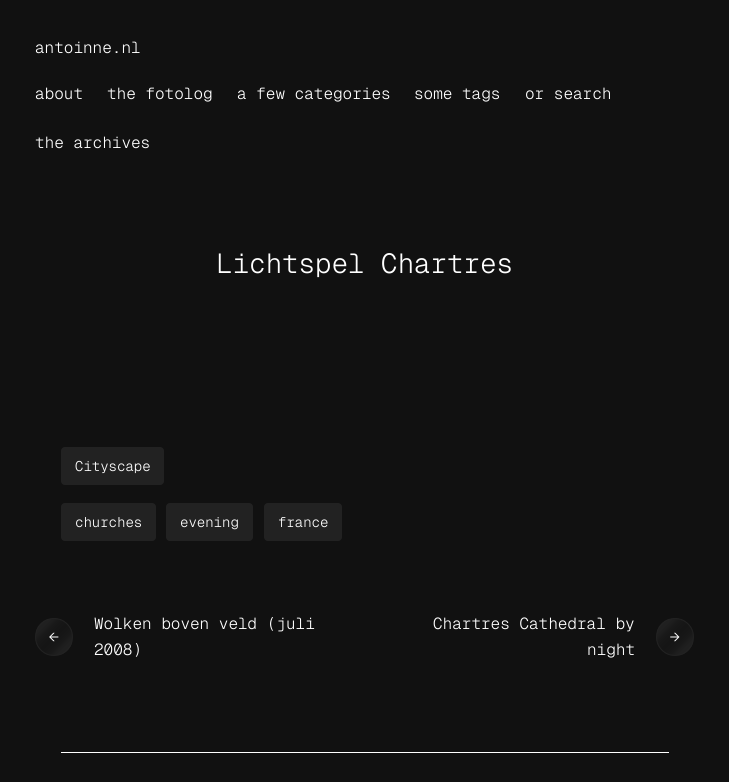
#include <cairo.h>
#include <math.h>
#include <stddef.h>


static void set_color(cairo_t *cr, unsigned color) {
    cairo_set_source_rgb(cr, (color >> 16) / 255.0, (color >> 8 & 255) / 255.0, (color & 255) / 255.0);
}

static void draw_text(cairo_t *cr, double x, double y, const char *s, const char *family, double size, int italic, int bold, unsigned color) {
    cairo_select_font_face(cr, family, italic ? CAIRO_FONT_SLANT_ITALIC : CAIRO_FONT_SLANT_NORMAL,
        bold ? CAIRO_FONT_WEIGHT_BOLD : CAIRO_FONT_WEIGHT_NORMAL);
    cairo_set_font_size(cr, size);
    set_color(cr, color);
    cairo_move_to(cr, x, y);
    cairo_show_text(cr, s);
}

static void fill_rect(cairo_t *cr, double x, double y, double w, double h, unsigned color) {
    set_color(cr, color);
    cairo_rectangle(cr, x, y, w, h);
    cairo_fill(cr);
}

static void rounded_rect(cairo_t *cr, double x, double y, double w, double h, double r) {
    cairo_new_sub_path(cr);
    cairo_arc(cr, x + w - r, y + h - r, r, 0, M_PI / 2);
    cairo_arc(cr, x + r, y + h - r, r, M_PI / 2, M_PI);
    cairo_arc(cr, x + r, y + r, r, M_PI, 1.5 * M_PI);
    cairo_arc(cr, x + w - r, y + r, r, 1.5 * M_PI, 2 * M_PI);
    cairo_close_path(cr);
}

int main(void) {
    cairo_surface_t *surface = cairo_image_surface_create(CAIRO_FORMAT_RGB24, 729, 782);
    cairo_t *cr = cairo_create(surface);
    cairo_font_options_t *options = cairo_font_options_create();
    cairo_font_options_set_hint_metrics(options, CAIRO_HINT_METRICS_OFF);
    cairo_font_options_set_hint_style(options, CAIRO_HINT_STYLE_NONE);
    cairo_set_font_options(cr, options);
    cairo_set_miter_limit(cr, 4);
    cairo_pattern_t *gradient;
    set_color(cr, 0x111111);
    cairo_paint(cr);
    draw_text(cr, 35, 53, "antoinne.nl", "Geist Mono Light", 16, 0, 0, 0xFFFFFF);
    draw_text(cr, 35, 99, "about", "Geist Mono Light", 16, 0, 0, 0xFFFFFF);
    draw_text(cr, 107, 99, "the fotolog", "Geist Mono Light", 16, 0, 0, 0xFFFFFF);
    draw_text(cr, 237, 99, "a few categories", "Geist Mono Light", 16, 0, 0, 0xFFFFFF);
    draw_text(cr, 414, 99, "some tags", "Geist Mono Light", 16, 0, 0, 0xFFFFFF);
    draw_text(cr, 525, 99, "or search", "Geist Mono Light", 16, 0, 0, 0xFFFFFF);
    draw_text(cr, 35, 148, "the archives", "Geist Mono Light", 16, 0, 0, 0xFFFFFF);
    draw_text(cr, 216, 273, "Lichtspel Chartres", "Geist Mono Light", 27.5, 0, 0, 0xFFFFFF);
    set_color(cr, 0x222222);
    rounded_rect(cr, 61, 447, 103, 38, 4);
    cairo_fill(cr);
    draw_text(cr, 75, 471, "Cityscape", "Geist Mono Light", 14, 0, 0, 0xFFFFFF);
    set_color(cr, 0x222222);
    rounded_rect(cr, 61, 503, 95, 38, 4);
    cairo_fill(cr);
    draw_text(cr, 75, 527, "churches", "Geist Mono Light", 14, 0, 0, 0xFFFFFF);
    set_color(cr, 0x222222);
    rounded_rect(cr, 166, 503, 87, 38, 4);
    cairo_fill(cr);
    draw_text(cr, 180, 527, "evening", "Geist Mono Light", 14, 0, 0, 0xFFFFFF);
    set_color(cr, 0x222222);
    rounded_rect(cr, 264, 503, 78, 38, 4);
    cairo_fill(cr);
    draw_text(cr, 278, 527, "france", "Geist Mono Light", 14, 0, 0, 0xFFFFFF);
    cairo_save(cr);
    rounded_rect(cr, 35, 618, 38, 38, 19);
    cairo_clip(cr);
    gradient = cairo_pattern_create_linear(36, 619, 72, 655);
    cairo_pattern_add_color_stop_rgba(gradient, 0, 0.067, 0.067, 0.067, 1);
    cairo_pattern_add_color_stop_rgba(gradient, 0.06, 0.133, 0.133, 0.133, 1);
    cairo_pattern_add_color_stop_rgba(gradient, 0.11, 0.133, 0.133, 0.133, 1);
    cairo_pattern_add_color_stop_rgba(gradient, 0.15, 0.129, 0.129, 0.129, 1);
    cairo_pattern_add_color_stop_rgba(gradient, 0.18, 0.125, 0.125, 0.125, 1);
    cairo_pattern_add_color_stop_rgba(gradient, 0.2, 0.125, 0.125, 0.125, 1);
    cairo_pattern_add_color_stop_rgba(gradient, 0.22, 0.122, 0.122, 0.122, 1);
    cairo_pattern_add_color_stop_rgba(gradient, 0.24, 0.118, 0.118, 0.118, 1);
    cairo_pattern_add_color_stop_rgba(gradient, 0.26, 0.114, 0.114, 0.114, 1);
    cairo_pattern_add_color_stop_rgba(gradient, 0.28, 0.11, 0.11, 0.11, 1);
    cairo_pattern_add_color_stop_rgba(gradient, 0.3, 0.106, 0.106, 0.106, 1);
    cairo_pattern_add_color_stop_rgba(gradient, 0.32, 0.098, 0.098, 0.098, 1);
    cairo_pattern_add_color_stop_rgba(gradient, 0.35, 0.094, 0.094, 0.094, 1);
    cairo_pattern_add_color_stop_rgba(gradient, 0.39, 0.09, 0.09, 0.09, 1);
    cairo_pattern_add_color_stop_rgba(gradient, 0.44, 0.086, 0.086, 0.086, 1);
    cairo_pattern_add_color_stop_rgba(gradient, 0.5, 0.082, 0.082, 0.082, 1);
    cairo_pattern_add_color_stop_rgba(gradient, 0.56, 0.086, 0.086, 0.086, 1);
    cairo_pattern_add_color_stop_rgba(gradient, 0.61, 0.09, 0.09, 0.09, 1);
    cairo_pattern_add_color_stop_rgba(gradient, 0.65, 0.094, 0.094, 0.094, 1);
    cairo_pattern_add_color_stop_rgba(gradient, 0.68, 0.098, 0.098, 0.098, 1);
    cairo_pattern_add_color_stop_rgba(gradient, 0.7, 0.106, 0.106, 0.106, 1);
    cairo_pattern_add_color_stop_rgba(gradient, 0.72, 0.11, 0.11, 0.11, 1);
    cairo_pattern_add_color_stop_rgba(gradient, 0.74, 0.114, 0.114, 0.114, 1);
    cairo_pattern_add_color_stop_rgba(gradient, 0.76, 0.118, 0.118, 0.118, 1);
    cairo_pattern_add_color_stop_rgba(gradient, 0.78, 0.122, 0.122, 0.122, 1);
    cairo_pattern_add_color_stop_rgba(gradient, 0.8, 0.125, 0.125, 0.125, 1);
    cairo_pattern_add_color_stop_rgba(gradient, 0.82, 0.125, 0.125, 0.125, 1);
    cairo_pattern_add_color_stop_rgba(gradient, 0.85, 0.129, 0.129, 0.129, 1);
    cairo_pattern_add_color_stop_rgba(gradient, 0.89, 0.133, 0.133, 0.133, 1);
    cairo_pattern_add_color_stop_rgba(gradient, 0.94, 0.133, 0.133, 0.133, 1);
    cairo_pattern_add_color_stop_rgba(gradient, 1, 0.067, 0.067, 0.067, 1);
    cairo_set_source(cr, gradient);
    cairo_pattern_destroy(gradient);
    cairo_rectangle(cr, 36, 619, 36, 36);
    cairo_fill(cr);
    cairo_restore(cr);
    cairo_arc(cr, 54, 637, 18.5, 0, 2 * M_PI);
    set_color(cr, 0x222222);
    cairo_set_line_width(cr, 1);
    cairo_stroke(cr);
    draw_text(cr, 49, 642, "←", "Geist Mono Light", 16, 0, 0, 0xFFFFFF);
    draw_text(cr, 94, 629, "Wolken boven veld (juli", "Geist Mono Light", 16, 0, 0, 0xFFFFFF);
    draw_text(cr, 94, 655, "2008)", "Geist Mono Light", 16, 0, 0, 0xFFFFFF);
    draw_text(cr, 433, 629, "Chartres Cathedral by", "Geist Mono Light", 16, 0, 0, 0xFFFFFF);
    draw_text(cr, 587, 655, "night", "Geist Mono Light", 16, 0, 0, 0xFFFFFF);
    cairo_save(cr);
    rounded_rect(cr, 656, 618, 38, 38, 19);
    cairo_clip(cr);
    gradient = cairo_pattern_create_linear(657, 619, 693, 655);
    cairo_pattern_add_color_stop_rgba(gradient, 0, 0.067, 0.067, 0.067, 1);
    cairo_pattern_add_color_stop_rgba(gradient, 0.06, 0.133, 0.133, 0.133, 1);
    cairo_pattern_add_color_stop_rgba(gradient, 0.11, 0.133, 0.133, 0.133, 1);
    cairo_pattern_add_color_stop_rgba(gradient, 0.15, 0.129, 0.129, 0.129, 1);
    cairo_pattern_add_color_stop_rgba(gradient, 0.18, 0.125, 0.125, 0.125, 1);
    cairo_pattern_add_color_stop_rgba(gradient, 0.2, 0.125, 0.125, 0.125, 1);
    cairo_pattern_add_color_stop_rgba(gradient, 0.22, 0.122, 0.122, 0.122, 1);
    cairo_pattern_add_color_stop_rgba(gradient, 0.24, 0.118, 0.118, 0.118, 1);
    cairo_pattern_add_color_stop_rgba(gradient, 0.26, 0.114, 0.114, 0.114, 1);
    cairo_pattern_add_color_stop_rgba(gradient, 0.28, 0.11, 0.11, 0.11, 1);
    cairo_pattern_add_color_stop_rgba(gradient, 0.3, 0.106, 0.106, 0.106, 1);
    cairo_pattern_add_color_stop_rgba(gradient, 0.32, 0.098, 0.098, 0.098, 1);
    cairo_pattern_add_color_stop_rgba(gradient, 0.35, 0.094, 0.094, 0.094, 1);
    cairo_pattern_add_color_stop_rgba(gradient, 0.39, 0.09, 0.09, 0.09, 1);
    cairo_pattern_add_color_stop_rgba(gradient, 0.44, 0.086, 0.086, 0.086, 1);
    cairo_pattern_add_color_stop_rgba(gradient, 0.5, 0.082, 0.082, 0.082, 1);
    cairo_pattern_add_color_stop_rgba(gradient, 0.56, 0.086, 0.086, 0.086, 1);
    cairo_pattern_add_color_stop_rgba(gradient, 0.61, 0.09, 0.09, 0.09, 1);
    cairo_pattern_add_color_stop_rgba(gradient, 0.65, 0.094, 0.094, 0.094, 1);
    cairo_pattern_add_color_stop_rgba(gradient, 0.68, 0.098, 0.098, 0.098, 1);
    cairo_pattern_add_color_stop_rgba(gradient, 0.7, 0.106, 0.106, 0.106, 1);
    cairo_pattern_add_color_stop_rgba(gradient, 0.72, 0.11, 0.11, 0.11, 1);
    cairo_pattern_add_color_stop_rgba(gradient, 0.74, 0.114, 0.114, 0.114, 1);
    cairo_pattern_add_color_stop_rgba(gradient, 0.76, 0.118, 0.118, 0.118, 1);
    cairo_pattern_add_color_stop_rgba(gradient, 0.78, 0.122, 0.122, 0.122, 1);
    cairo_pattern_add_color_stop_rgba(gradient, 0.8, 0.125, 0.125, 0.125, 1);
    cairo_pattern_add_color_stop_rgba(gradient, 0.82, 0.125, 0.125, 0.125, 1);
    cairo_pattern_add_color_stop_rgba(gradient, 0.85, 0.129, 0.129, 0.129, 1);
    cairo_pattern_add_color_stop_rgba(gradient, 0.89, 0.133, 0.133, 0.133, 1);
    cairo_pattern_add_color_stop_rgba(gradient, 0.94, 0.133, 0.133, 0.133, 1);
    cairo_pattern_add_color_stop_rgba(gradient, 1, 0.067, 0.067, 0.067, 1);
    cairo_set_source(cr, gradient);
    cairo_pattern_destroy(gradient);
    cairo_rectangle(cr, 657, 619, 36, 36);
    cairo_fill(cr);
    cairo_restore(cr);
    cairo_arc(cr, 675, 637, 18.5, 0, 2 * M_PI);
    set_color(cr, 0x222222);
    cairo_stroke(cr);
    draw_text(cr, 670, 642, "→", "Geist Mono Light", 16, 0, 0, 0xFFFFFF);
    fill_rect(cr, 61, 752, 608, 1, 0xFFFFFF);
    cairo_surface_write_to_png(surface, "output.png");
    cairo_font_options_destroy(options);
    cairo_destroy(cr);
    cairo_surface_destroy(surface);
    return 0;
}
